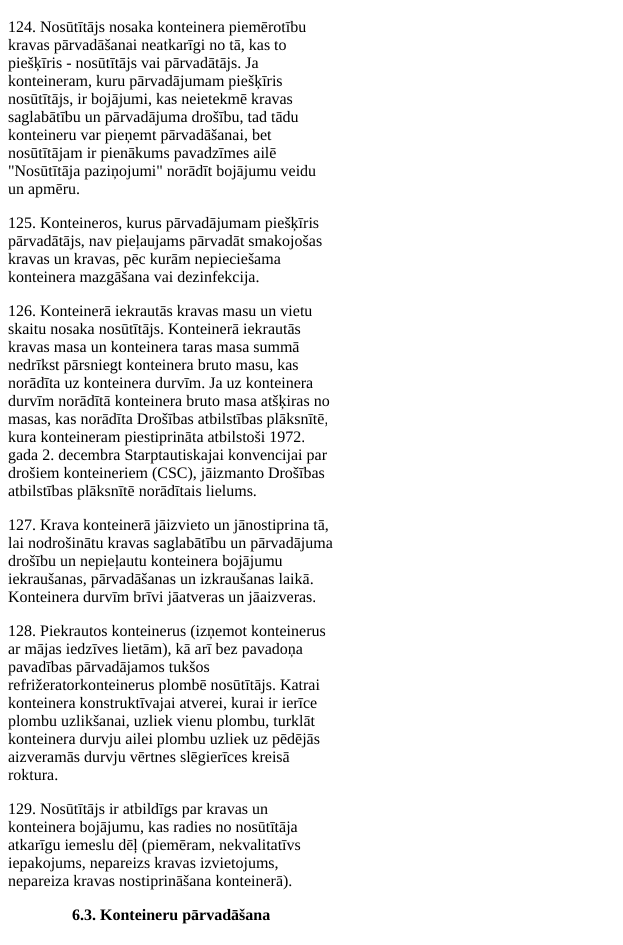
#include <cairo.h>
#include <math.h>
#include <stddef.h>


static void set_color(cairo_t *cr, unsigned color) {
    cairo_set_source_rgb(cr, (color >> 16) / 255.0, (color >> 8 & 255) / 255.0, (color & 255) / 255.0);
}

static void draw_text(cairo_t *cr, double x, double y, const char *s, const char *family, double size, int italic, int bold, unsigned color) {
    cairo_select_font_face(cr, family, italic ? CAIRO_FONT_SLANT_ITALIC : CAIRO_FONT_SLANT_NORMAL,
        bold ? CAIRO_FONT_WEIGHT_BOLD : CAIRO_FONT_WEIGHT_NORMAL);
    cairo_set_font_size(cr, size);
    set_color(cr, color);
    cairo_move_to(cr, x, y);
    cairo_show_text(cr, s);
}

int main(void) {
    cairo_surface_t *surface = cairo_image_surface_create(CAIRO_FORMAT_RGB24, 623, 945);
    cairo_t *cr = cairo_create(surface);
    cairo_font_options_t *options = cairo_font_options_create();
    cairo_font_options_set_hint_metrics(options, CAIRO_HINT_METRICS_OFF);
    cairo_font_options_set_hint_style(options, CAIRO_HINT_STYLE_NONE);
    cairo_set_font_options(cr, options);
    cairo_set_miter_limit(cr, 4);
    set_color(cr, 0xFFFFFF);
    cairo_paint(cr);
    draw_text(cr, 8, 32, "124. Nosūtītājs nosaka konteinera piemērotību", "Liberation Serif", 16, 0, 0, 0x000000);
    draw_text(cr, 8, 50, "kravas pārvadāšanai neatkarīgi no tā, kas to", "Liberation Serif", 16, 0, 0, 0x000000);
    draw_text(cr, 8, 68, "piešķīris - nosūtītājs vai pārvadātājs. Ja", "Liberation Serif", 16, 0, 0, 0x000000);
    draw_text(cr, 8, 86, "konteineram, kuru pārvadājumam piešķīris", "Liberation Serif", 16, 0, 0, 0x000000);
    draw_text(cr, 8, 104, "nosūtītājs, ir bojājumi, kas neietekmē kravas", "Liberation Serif", 16, 0, 0, 0x000000);
    draw_text(cr, 8, 122, "saglabātību un pārvadājuma drošību, tad tādu", "Liberation Serif", 16, 0, 0, 0x000000);
    draw_text(cr, 8, 140, "konteineru var pieņemt pārvadāšanai, bet", "Liberation Serif", 16, 0, 0, 0x000000);
    draw_text(cr, 8, 158, "nosūtītājam ir pienākums pavadzīmes ailē", "Liberation Serif", 16, 0, 0, 0x000000);
    draw_text(cr, 8, 176, "\"Nosūtītāja paziņojumi\" norādīt bojājumu veidu", "Liberation Serif", 16, 0, 0, 0x000000);
    draw_text(cr, 8, 194, "un apmēru.", "Liberation Serif", 16, 0, 0, 0x000000);
    draw_text(cr, 8, 228, "125. Konteineros, kurus pārvadājumam piešķīris", "Liberation Serif", 16, 0, 0, 0x000000);
    draw_text(cr, 8, 246, "pārvadātājs, nav pieļaujams pārvadāt smakojošas", "Liberation Serif", 16, 0, 0, 0x000000);
    draw_text(cr, 8, 264, "kravas un kravas, pēc kurām nepieciešama", "Liberation Serif", 16, 0, 0, 0x000000);
    draw_text(cr, 8, 282, "konteinera mazgāšana vai dezinfekcija.", "Liberation Serif", 16, 0, 0, 0x000000);
    draw_text(cr, 8, 316, "126. Konteinerā iekrautās kravas masu un vietu", "Liberation Serif", 16, 0, 0, 0x000000);
    draw_text(cr, 8, 334, "skaitu nosaka nosūtītājs. Konteinerā iekrautās", "Liberation Serif", 16, 0, 0, 0x000000);
    draw_text(cr, 8, 352, "kravas masa un konteinera taras masa summā", "Liberation Serif", 16, 0, 0, 0x000000);
    draw_text(cr, 8, 370, "nedrīkst pārsniegt konteinera bruto masu, kas", "Liberation Serif", 16, 0, 0, 0x000000);
    draw_text(cr, 8, 388, "norādīta uz konteinera durvīm. Ja uz konteinera", "Liberation Serif", 16, 0, 0, 0x000000);
    draw_text(cr, 8, 406, "durvīm norādītā konteinera bruto masa atšķiras no", "Liberation Serif", 16, 0, 0, 0x000000);
    draw_text(cr, 8, 424, "masas, kas norādīta Drošības atbilstības plāksnītē,", "Liberation Serif", 16, 0, 0, 0x000000);
    draw_text(cr, 8, 442, "kura konteineram piestiprināta atbilstoši 1972.", "Liberation Serif", 16, 0, 0, 0x000000);
    draw_text(cr, 8, 460, "gada 2. decembra Starptautiskajai konvencijai par", "Liberation Serif", 16, 0, 0, 0x000000);
    draw_text(cr, 8, 478, "drošiem konteineriem (CSC), jāizmanto Drošības", "Liberation Serif", 16, 0, 0, 0x000000);
    draw_text(cr, 8, 496, "atbilstības plāksnītē norādītais lielums.", "Liberation Serif", 16, 0, 0, 0x000000);
    draw_text(cr, 8, 530, "127. Krava konteinerā jāizvieto un jānostiprina tā,", "Liberation Serif", 16, 0, 0, 0x000000);
    draw_text(cr, 8, 548, "lai nodrošinātu kravas saglabātību un pārvadājuma", "Liberation Serif", 16, 0, 0, 0x000000);
    draw_text(cr, 8, 566, "drošību un nepieļautu konteinera bojājumu", "Liberation Serif", 16, 0, 0, 0x000000);
    draw_text(cr, 8, 584, "iekraušanas, pārvadāšanas un izkraušanas laikā.", "Liberation Serif", 16, 0, 0, 0x000000);
    draw_text(cr, 8, 602, "Konteinera durvīm brīvi jāatveras un jāaizveras.", "Liberation Serif", 16, 0, 0, 0x000000);
    draw_text(cr, 8, 636, "128. Piekrautos konteinerus (izņemot konteinerus", "Liberation Serif", 16, 0, 0, 0x000000);
    draw_text(cr, 8, 654, "ar mājas iedzīves lietām), kā arī bez pavadoņa", "Liberation Serif", 16, 0, 0, 0x000000);
    draw_text(cr, 8, 672, "pavadības pārvadājamos tukšos", "Liberation Serif", 16, 0, 0, 0x000000);
    draw_text(cr, 8, 690, "refrižeratorkonteinerus plombē nosūtītājs. Katrai", "Liberation Serif", 16, 0, 0, 0x000000);
    draw_text(cr, 8, 708, "konteinera konstruktīvajai atverei, kurai ir ierīce", "Liberation Serif", 16, 0, 0, 0x000000);
    draw_text(cr, 8, 726, "plombu uzlikšanai, uzliek vienu plombu, turklāt", "Liberation Serif", 16, 0, 0, 0x000000);
    draw_text(cr, 8, 744, "konteinera durvju ailei plombu uzliek uz pēdējās", "Liberation Serif", 16, 0, 0, 0x000000);
    draw_text(cr, 8, 762, "aizveramās durvju vērtnes slēgierīces kreisā", "Liberation Serif", 16, 0, 0, 0x000000);
    draw_text(cr, 8, 780, "roktura.", "Liberation Serif", 16, 0, 0, 0x000000);
    draw_text(cr, 8, 814, "129. Nosūtītājs ir atbildīgs par kravas un", "Liberation Serif", 16, 0, 0, 0x000000);
    draw_text(cr, 8, 832, "konteinera bojājumu, kas radies no nosūtītāja", "Liberation Serif", 16, 0, 0, 0x000000);
    draw_text(cr, 8, 850, "atkarīgu iemeslu dēļ (piemēram, nekvalitatīvs", "Liberation Serif", 16, 0, 0, 0x000000);
    draw_text(cr, 8, 868, "iepakojums, nepareizs kravas izvietojums,", "Liberation Serif", 16, 0, 0, 0x000000);
    draw_text(cr, 8, 886, "nepareiza kravas nostiprināšana konteinerā).", "Liberation Serif", 16, 0, 0, 0x000000);
    draw_text(cr, 72, 920, "6.3. Konteineru pārvadāšana", "Liberation Serif", 16, 0, 1, 0x000000);
    cairo_surface_write_to_png(surface, "output.png");
    cairo_font_options_destroy(options);
    cairo_destroy(cr);
    cairo_surface_destroy(surface);
    return 0;
}
